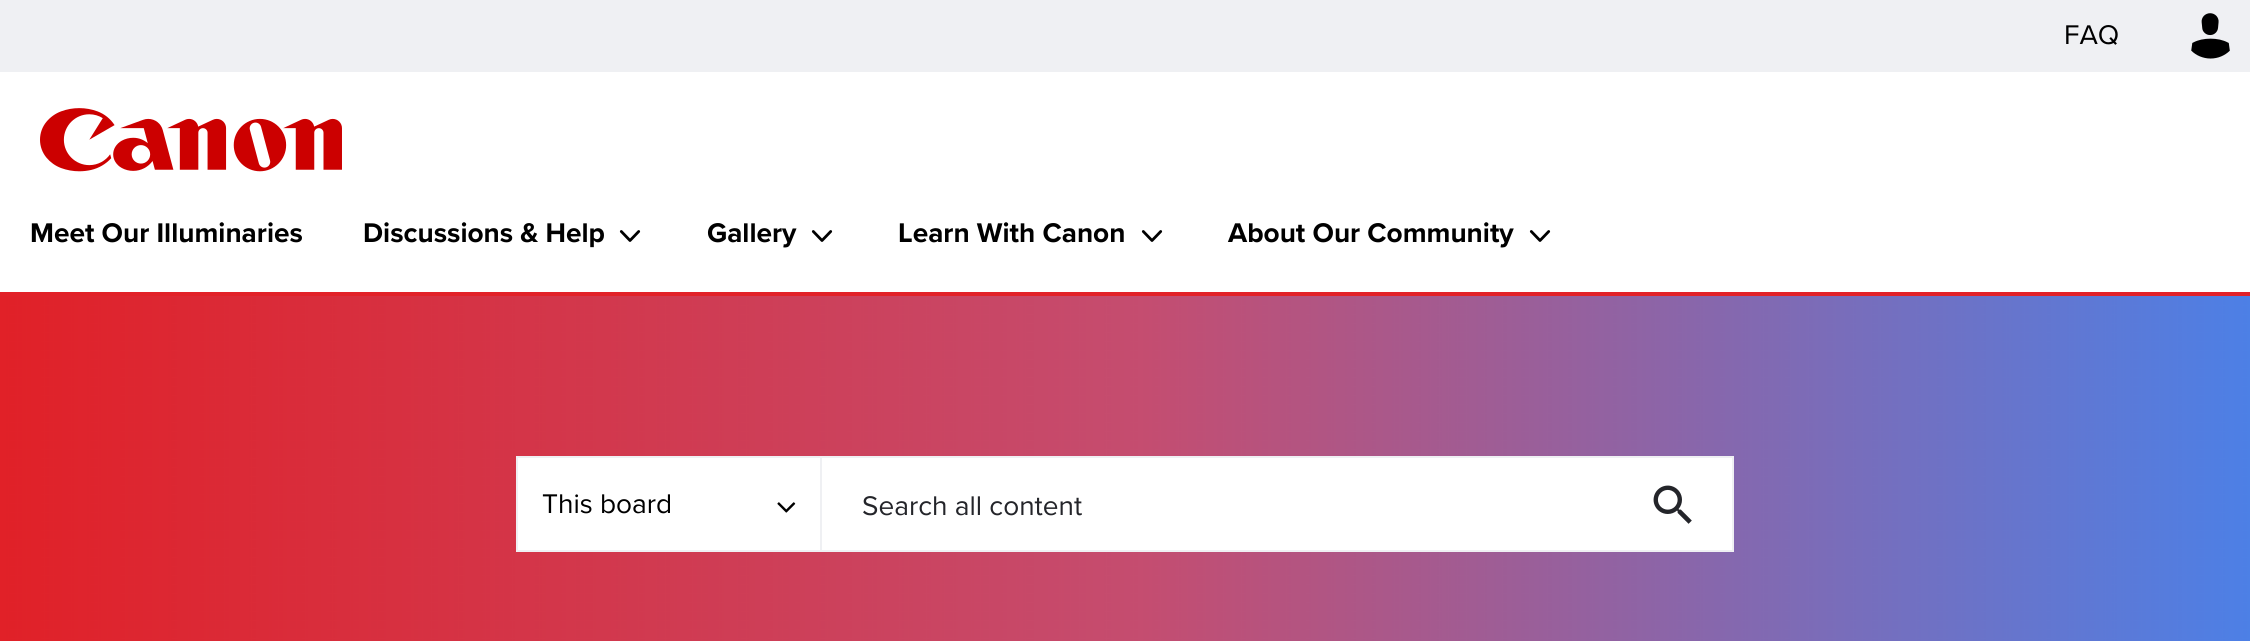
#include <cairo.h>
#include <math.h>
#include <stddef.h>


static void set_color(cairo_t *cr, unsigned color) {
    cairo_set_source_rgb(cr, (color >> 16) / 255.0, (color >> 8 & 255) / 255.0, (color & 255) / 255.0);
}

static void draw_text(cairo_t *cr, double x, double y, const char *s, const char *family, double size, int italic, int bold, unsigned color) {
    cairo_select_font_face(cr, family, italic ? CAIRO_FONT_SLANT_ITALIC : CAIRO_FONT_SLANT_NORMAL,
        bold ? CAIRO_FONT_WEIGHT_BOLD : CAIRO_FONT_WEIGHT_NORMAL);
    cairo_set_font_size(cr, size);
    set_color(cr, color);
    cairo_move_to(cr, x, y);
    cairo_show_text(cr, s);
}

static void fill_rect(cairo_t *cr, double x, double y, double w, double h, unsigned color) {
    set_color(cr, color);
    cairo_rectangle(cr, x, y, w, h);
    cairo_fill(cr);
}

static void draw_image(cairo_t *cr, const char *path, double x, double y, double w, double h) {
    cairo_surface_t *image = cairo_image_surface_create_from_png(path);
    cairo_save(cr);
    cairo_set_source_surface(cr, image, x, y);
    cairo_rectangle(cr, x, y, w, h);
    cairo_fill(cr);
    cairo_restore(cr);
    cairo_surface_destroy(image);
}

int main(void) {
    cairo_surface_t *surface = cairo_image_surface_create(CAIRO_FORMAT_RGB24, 2250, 641);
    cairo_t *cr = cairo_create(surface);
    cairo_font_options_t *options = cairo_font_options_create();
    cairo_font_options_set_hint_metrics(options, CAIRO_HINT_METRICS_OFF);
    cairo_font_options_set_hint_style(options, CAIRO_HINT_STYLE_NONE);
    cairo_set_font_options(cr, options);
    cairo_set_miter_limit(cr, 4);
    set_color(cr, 0xFFFFFF);
    cairo_paint(cr);
    fill_rect(cr, 0, 0, 2250, 72, 0xEFF0F3);
    draw_text(cr, 2064, 44, "FAQ", "Proxima Nova", 28, 0, 0, 0x000000);
    draw_image(cr, "assets/img1.png", 2191, 13, 39, 46);
    draw_image(cr, "assets/img2.png", 40, 108, 302, 64);
    fill_rect(cr, 0, 292, 2250, 4, 0xE22128);
    draw_text(cr, 30, 242, "Meet Our Illuminaries", "Proxima Nova", 28, 0, 1, 0x000000);
    draw_text(cr, 363, 242, "Discussions & Help", "Proxima Nova", 28, 0, 1, 0x000000);
    draw_image(cr, "assets/img3.png", 619, 230, 22, 12);
    draw_text(cr, 707, 242, "Gallery", "Proxima Nova", 28, 0, 1, 0x000000);
    draw_image(cr, "assets/img3.png", 811, 230, 22, 12);
    draw_text(cr, 898, 242, "Learn With Canon", "Proxima Nova", 28, 0, 1, 0x000000);
    draw_image(cr, "assets/img3.png", 1141, 230, 22, 12);
    draw_text(cr, 1228, 242, "About Our Community", "Proxima Nova", 28, 0, 1, 0x000000);
    draw_image(cr, "assets/img3.png", 1529, 230, 22, 12);
    draw_image(cr, "assets/img4.png", 0, 296, 2250, 345);
    fill_rect(cr, 518, 458, 302, 92, 0xFFFFFF);
    fill_rect(cr, 516, 456, 304, 2, 0xEFF0F3);
    fill_rect(cr, 516, 550, 304, 2, 0xEFF0F3);
    fill_rect(cr, 516, 456, 2, 96, 0xEFF0F3);
    draw_text(cr, 542, 513, "This board", "Proxima Nova", 28, 0, 0, 0x000000);
    draw_image(cr, "assets/img5.png", 777, 502, 19, 11);
    set_color(cr, 0xFFFFFF);
    cairo_rectangle(cr, 821, 457, 912, 94);
    cairo_fill_preserve(cr);
    set_color(cr, 0xEFF0F3);
    cairo_stroke(cr);
    draw_text(cr, 862, 515, "Search all content", "Proxima Nova", 28, 0, 0, 0x24252A);
    draw_image(cr, "assets/img6.png", 1653, 485, 39, 39);
    cairo_surface_write_to_png(surface, "output.png");
    cairo_font_options_destroy(options);
    cairo_destroy(cr);
    cairo_surface_destroy(surface);
    return 0;
}
